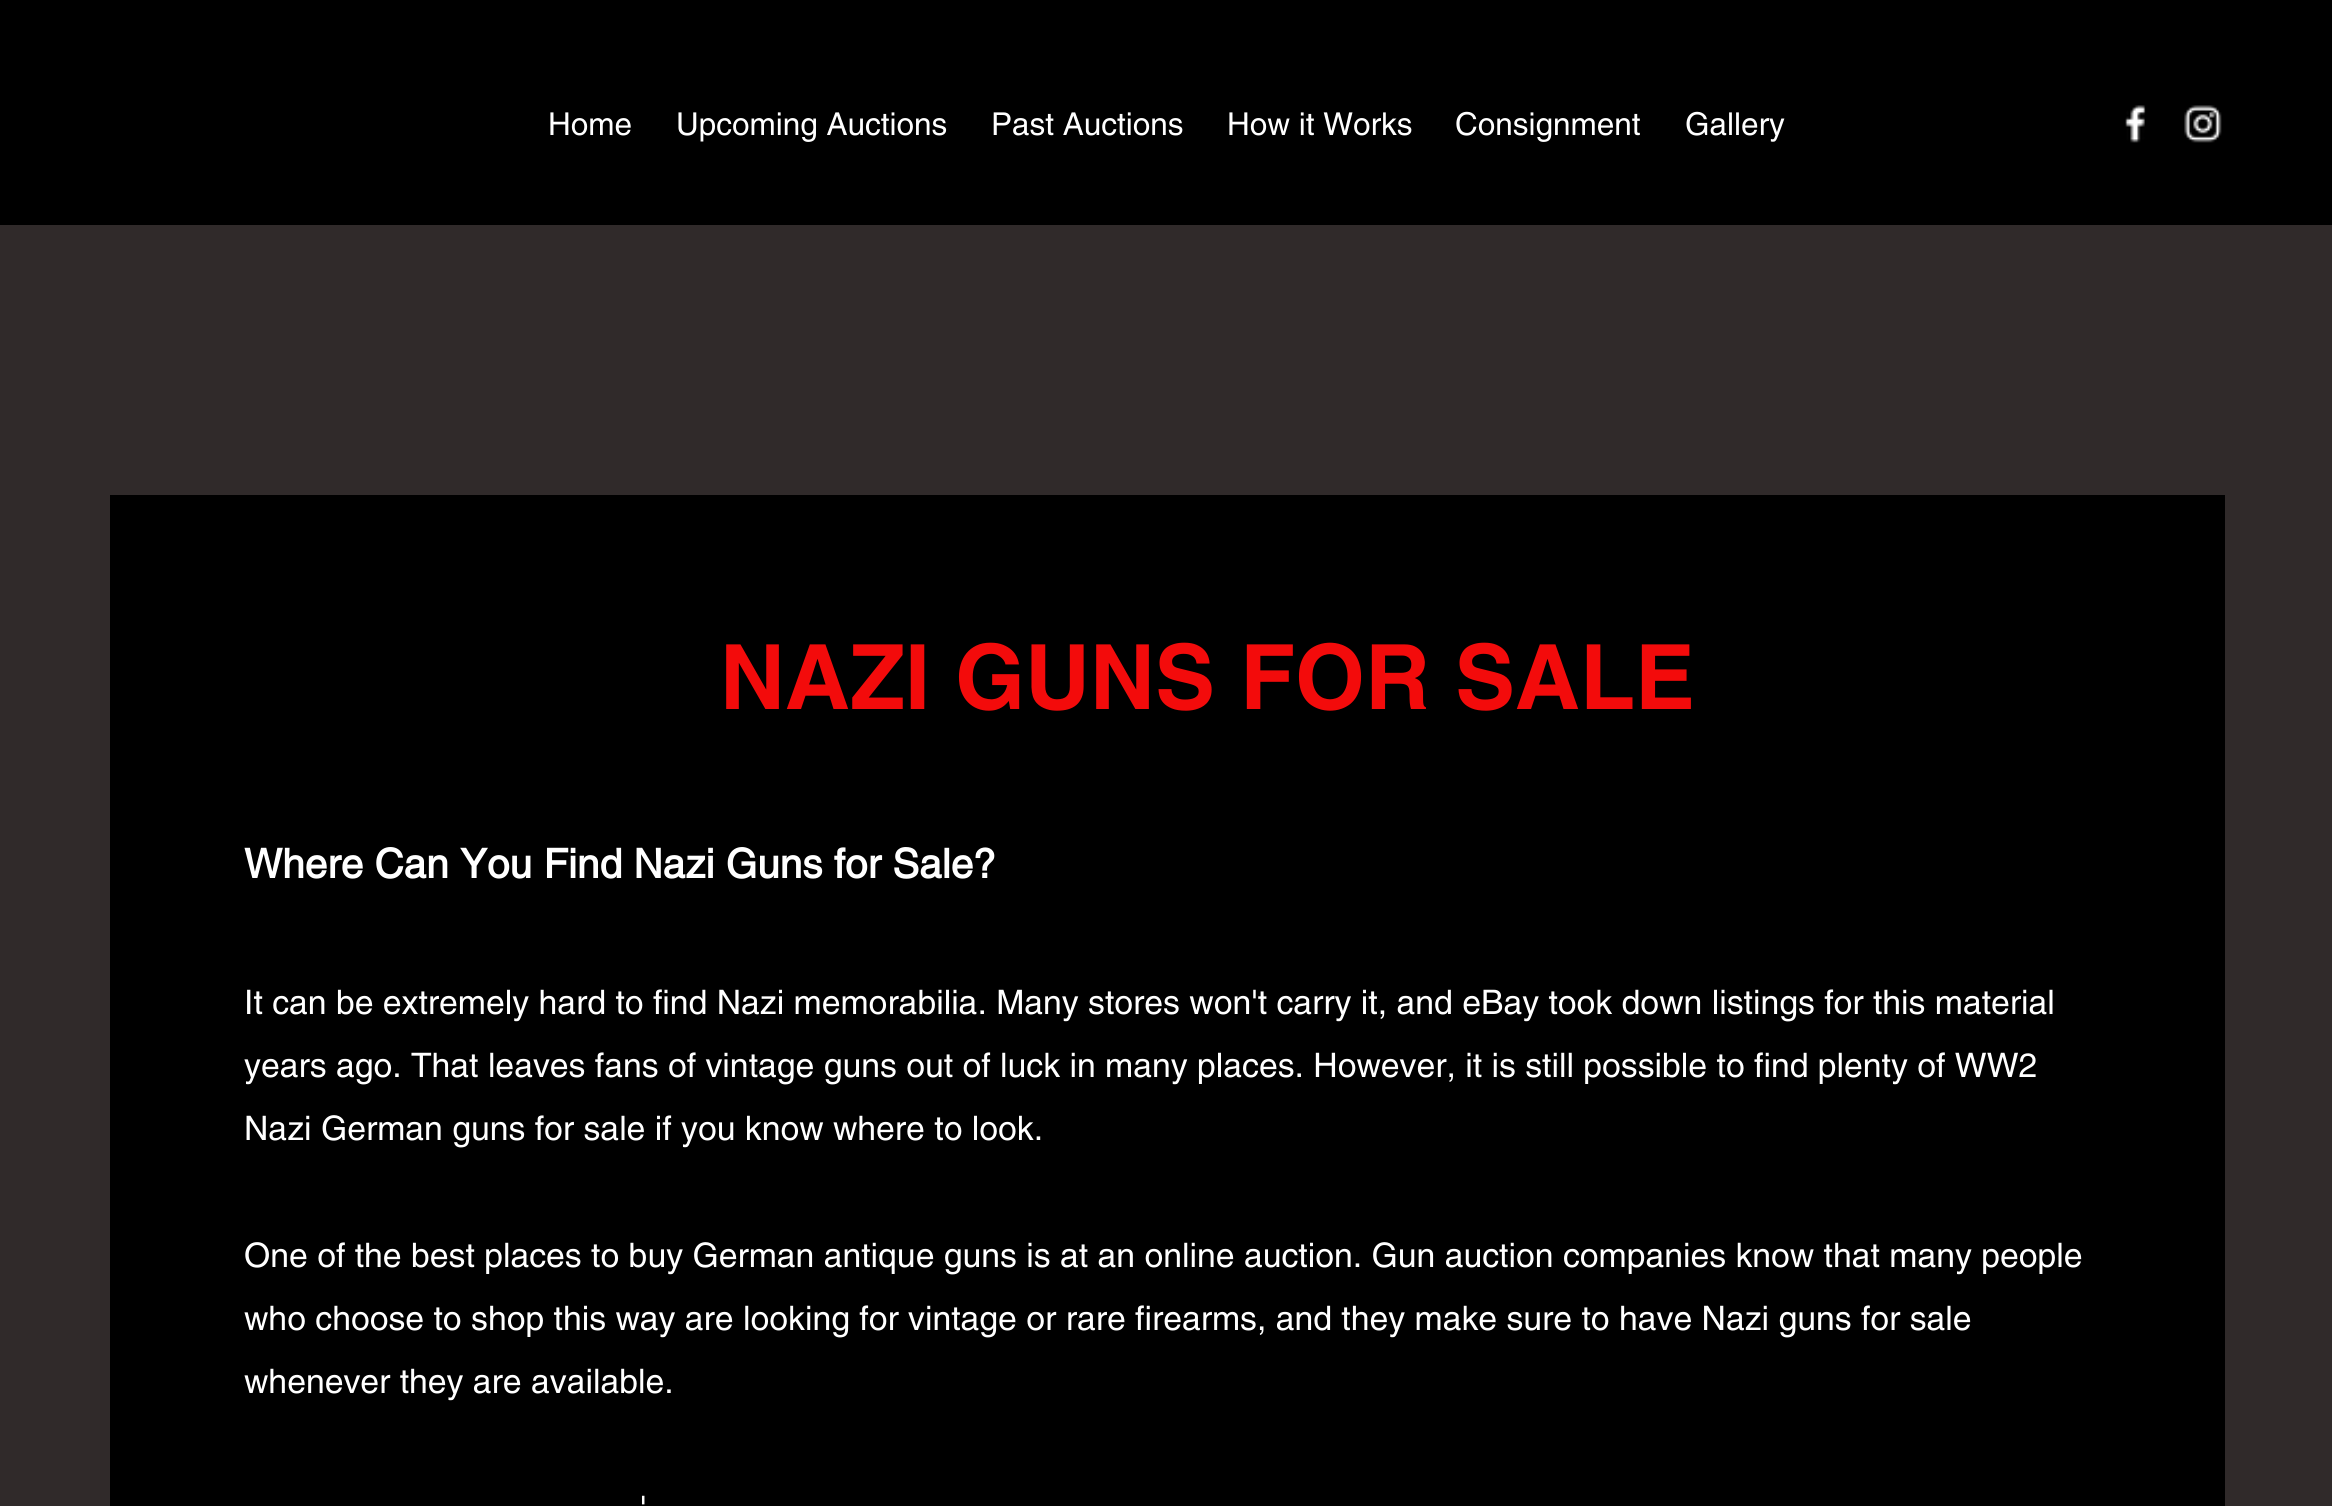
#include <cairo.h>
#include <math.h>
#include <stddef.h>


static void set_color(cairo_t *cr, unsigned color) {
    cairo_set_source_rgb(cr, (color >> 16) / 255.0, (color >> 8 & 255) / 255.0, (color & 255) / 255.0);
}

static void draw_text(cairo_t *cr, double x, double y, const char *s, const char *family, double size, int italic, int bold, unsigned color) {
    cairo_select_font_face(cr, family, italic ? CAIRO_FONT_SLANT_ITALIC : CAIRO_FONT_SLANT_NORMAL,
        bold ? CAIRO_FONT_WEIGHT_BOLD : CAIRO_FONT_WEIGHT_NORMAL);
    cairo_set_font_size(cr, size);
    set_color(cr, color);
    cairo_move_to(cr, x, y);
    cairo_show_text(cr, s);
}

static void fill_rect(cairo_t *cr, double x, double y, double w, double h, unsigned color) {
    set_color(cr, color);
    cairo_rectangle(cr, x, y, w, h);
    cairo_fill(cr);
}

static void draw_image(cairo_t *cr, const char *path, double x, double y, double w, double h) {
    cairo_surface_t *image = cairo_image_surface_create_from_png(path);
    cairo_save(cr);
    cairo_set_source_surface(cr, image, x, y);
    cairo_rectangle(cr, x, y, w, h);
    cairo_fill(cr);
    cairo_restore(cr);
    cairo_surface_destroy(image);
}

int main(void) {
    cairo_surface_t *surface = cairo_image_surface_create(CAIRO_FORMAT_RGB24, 2332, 1506);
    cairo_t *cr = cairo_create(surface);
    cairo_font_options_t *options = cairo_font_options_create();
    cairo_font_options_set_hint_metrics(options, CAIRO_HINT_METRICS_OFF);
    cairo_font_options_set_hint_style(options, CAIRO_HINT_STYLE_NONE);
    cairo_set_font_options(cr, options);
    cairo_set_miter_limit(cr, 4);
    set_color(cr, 0x302A2A);
    cairo_paint(cr);
    fill_rect(cr, 0, 0, 2332, 225, 0x000000);
    draw_text(cr, 548, 135, "Home", "helvetica", 31.5, 0, 0, 0xFFFFFF);
    draw_text(cr, 676, 135, "Upcoming Auctions", "helvetica", 31.5, 0, 0, 0xFFFFFF);
    draw_text(cr, 991, 135, "Past Auctions", "helvetica", 31.5, 0, 0, 0xFFFFFF);
    draw_text(cr, 1227, 135, "How it Works", "helvetica", 31.5, 0, 0, 0xFFFFFF);
    draw_text(cr, 1455, 135, "Consignment", "helvetica", 31.5, 0, 0, 0xFFFFFF);
    draw_text(cr, 1685, 135, "Gallery", "helvetica", 31.5, 0, 0, 0xFFFFFF);
    draw_image(cr, "assets/img1.png", 2125, 105, 21, 38);
    draw_image(cr, "assets/img2.png", 2184, 105, 38, 38);
    fill_rect(cr, 110, 495, 2115, 1011, 0x000000);
    draw_text(cr, 720, 709, "NAZI GUNS FOR SALE", "helvetica", 90, 0, 1, 0xF30B0B);
    draw_text(cr, 244, 878, "Where Can You Find Nazi Guns for Sale?", "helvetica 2", 40.5, 0, 1, 0xFFFFFF);
    draw_text(cr, 244, 1014, "It can be extremely hard to find Nazi memorabilia. Many stores won't carry it, and eBay took down listings for this material", "helvetica", 33.75, 0, 0, 0xFFFFFF);
    draw_text(cr, 244, 1077, "years ago. That leaves fans of vintage guns out of luck in many places. However, it is still possible to find plenty of WW2", "helvetica", 33.75, 0, 0, 0xFFFFFF);
    draw_text(cr, 244, 1140, "Nazi German guns for sale if you know where to look.", "helvetica", 33.75, 0, 0, 0xFFFFFF);
    draw_text(cr, 244, 1267, "One of the best places to buy German antique guns is at an online auction. Gun auction companies know that many people", "helvetica", 33.75, 0, 0, 0xFFFFFF);
    draw_text(cr, 244, 1330, "who choose to shop this way are looking for vintage or rare firearms, and they make sure to have Nazi guns for sale", "helvetica", 33.75, 0, 0, 0xFFFFFF);
    draw_text(cr, 244, 1393, "whenever they are available.", "helvetica", 33.75, 0, 0, 0xFFFFFF);
    draw_text(cr, 640, 1520, "'", "helvetica", 33.75, 0, 0, 0xFFFFFF);
    cairo_surface_write_to_png(surface, "output.png");
    cairo_font_options_destroy(options);
    cairo_destroy(cr);
    cairo_surface_destroy(surface);
    return 0;
}
